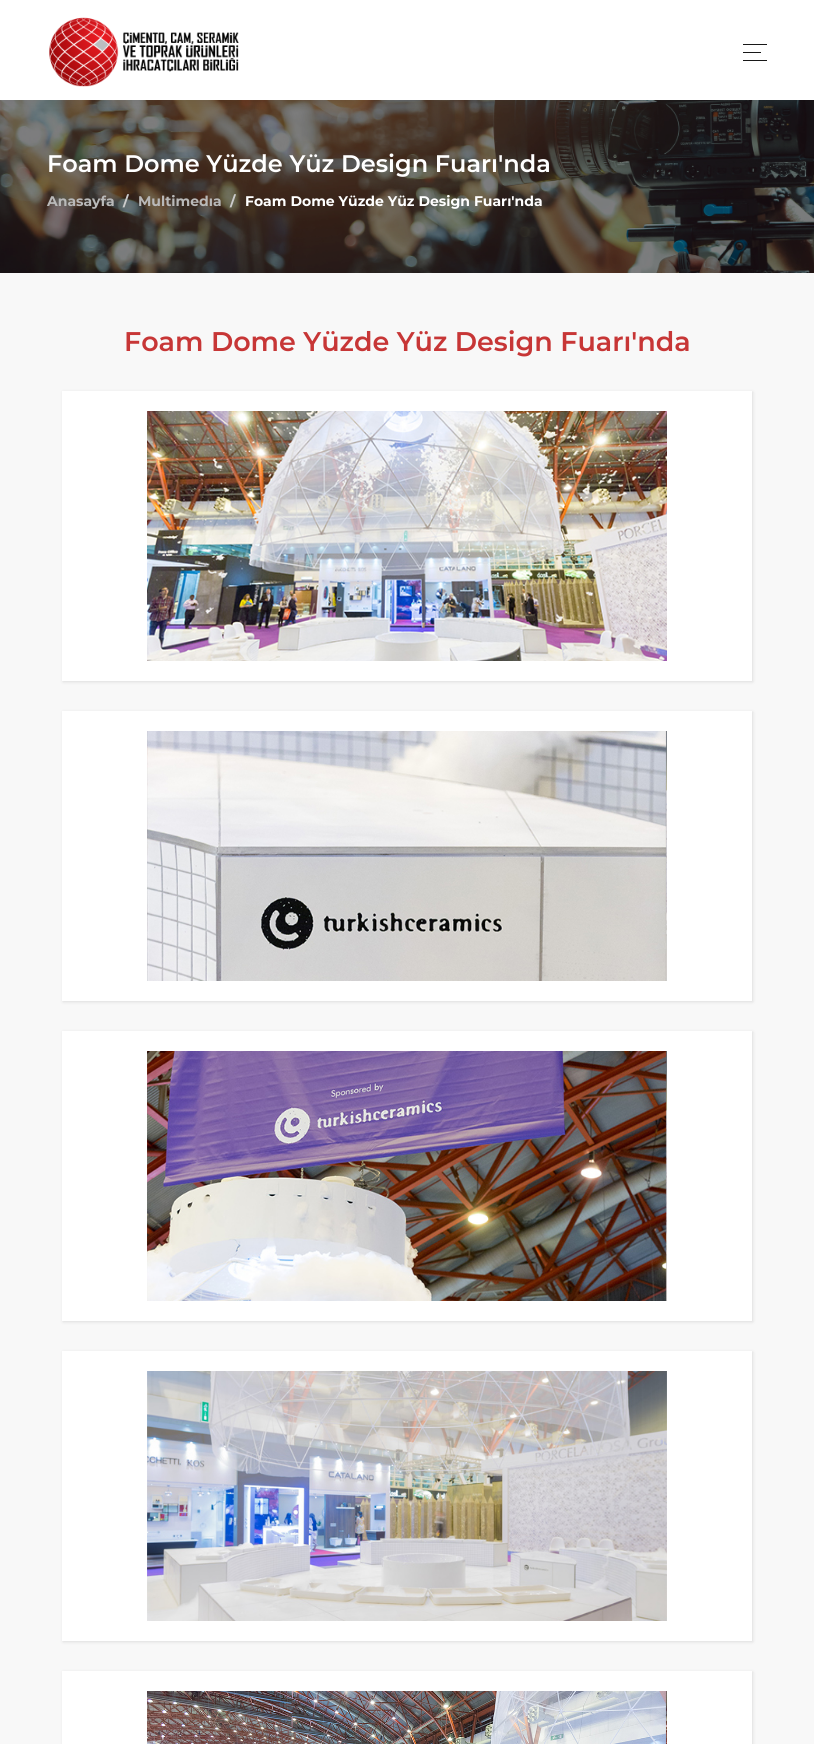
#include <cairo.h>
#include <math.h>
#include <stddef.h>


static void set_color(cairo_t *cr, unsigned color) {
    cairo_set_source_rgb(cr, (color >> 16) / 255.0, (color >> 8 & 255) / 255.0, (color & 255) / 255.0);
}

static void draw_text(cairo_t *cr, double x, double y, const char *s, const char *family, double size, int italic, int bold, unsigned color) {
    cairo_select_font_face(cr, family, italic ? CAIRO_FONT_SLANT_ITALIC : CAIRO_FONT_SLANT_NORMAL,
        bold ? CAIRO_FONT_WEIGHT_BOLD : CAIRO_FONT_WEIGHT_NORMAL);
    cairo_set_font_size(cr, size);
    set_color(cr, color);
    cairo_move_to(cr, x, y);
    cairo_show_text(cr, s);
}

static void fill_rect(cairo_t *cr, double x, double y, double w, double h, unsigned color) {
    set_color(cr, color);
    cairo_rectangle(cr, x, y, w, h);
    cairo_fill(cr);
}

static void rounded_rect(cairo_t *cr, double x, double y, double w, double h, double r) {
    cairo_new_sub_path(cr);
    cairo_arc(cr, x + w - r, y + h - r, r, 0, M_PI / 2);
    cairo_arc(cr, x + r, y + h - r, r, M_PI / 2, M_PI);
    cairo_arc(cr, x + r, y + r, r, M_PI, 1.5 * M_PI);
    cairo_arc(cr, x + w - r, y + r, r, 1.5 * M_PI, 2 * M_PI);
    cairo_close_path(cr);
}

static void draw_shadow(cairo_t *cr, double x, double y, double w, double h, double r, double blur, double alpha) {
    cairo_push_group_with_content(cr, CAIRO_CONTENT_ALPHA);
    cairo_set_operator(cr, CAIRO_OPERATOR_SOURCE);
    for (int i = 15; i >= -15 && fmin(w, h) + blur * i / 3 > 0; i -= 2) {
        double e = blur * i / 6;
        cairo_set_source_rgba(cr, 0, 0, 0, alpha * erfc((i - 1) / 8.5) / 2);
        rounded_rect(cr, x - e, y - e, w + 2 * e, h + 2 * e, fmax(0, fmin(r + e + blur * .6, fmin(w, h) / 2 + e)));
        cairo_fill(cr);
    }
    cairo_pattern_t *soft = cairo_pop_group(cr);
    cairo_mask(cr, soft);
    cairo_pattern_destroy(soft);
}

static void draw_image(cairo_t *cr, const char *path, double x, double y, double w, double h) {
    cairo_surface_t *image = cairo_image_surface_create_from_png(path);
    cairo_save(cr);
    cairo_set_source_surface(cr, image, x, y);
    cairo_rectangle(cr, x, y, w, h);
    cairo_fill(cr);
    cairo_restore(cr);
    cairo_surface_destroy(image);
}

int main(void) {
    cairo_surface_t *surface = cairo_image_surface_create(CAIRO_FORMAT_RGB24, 814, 1744);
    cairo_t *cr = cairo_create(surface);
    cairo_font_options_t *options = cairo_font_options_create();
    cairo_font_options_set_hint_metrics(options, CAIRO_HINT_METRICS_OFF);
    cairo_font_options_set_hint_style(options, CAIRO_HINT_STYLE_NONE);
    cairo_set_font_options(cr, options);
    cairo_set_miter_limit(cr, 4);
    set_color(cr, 0xF8F8F8);
    cairo_paint(cr);
    draw_image(cr, "assets/img2.png", 0, 100, 814, 173);
    set_color(cr, 0x000000);
    draw_shadow(cr, 1, 1, 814, 100, 0, 5, 0.06);
    fill_rect(cr, 0, 0, 814, 100, 0xFFFFFF);
    draw_image(cr, "assets/img1.png", 49, 17, 190, 70);
    fill_rect(cr, 743, 44, 24, 1, 0x181818);
    fill_rect(cr, 743, 52, 18, 1, 0x181818);
    fill_rect(cr, 743, 60, 24, 1, 0x181818);
    draw_text(cr, 47, 172, "Foam Dome Yüzde Yüz Design Fuarı'nda", "Montserrat SemiBold", 24, 0, 0, 0xFFFFFF);
    draw_text(cr, 47, 206, "Anasayfa", "Montserrat", 14, 0, 1, 0xB9B9B9);
    draw_text(cr, 123, 206, "/", "Montserrat", 14, 0, 1, 0xCCCCCC);
    draw_text(cr, 138, 206, "Multimedıa", "Montserrat", 14, 0, 1, 0xB9B9B9);
    draw_text(cr, 230, 206, "/", "Montserrat", 14, 0, 1, 0xCCCCCC);
    draw_text(cr, 245, 206, "Foam Dome Yüzde Yüz Design Fuarı'nda", "Montserrat", 14, 0, 1, 0xFFFFFF);
    draw_text(cr, 124, 351, "Foam Dome Yüzde Yüz Design Fuarı'nda", "Montserrat SemiBold", 27, 0, 0, 0xC73636);
    set_color(cr, 0xDEDEDE);
    draw_shadow(cr, 63, 392, 690, 290, 0, 1.5, 1);
    fill_rect(cr, 62, 391, 690, 290, 0xFFFFFF);
    draw_image(cr, "assets/img3.png", 147, 411, 520, 250);
    set_color(cr, 0xDEDEDE);
    draw_shadow(cr, 63, 712, 690, 290, 0, 1.5, 1);
    fill_rect(cr, 62, 711, 690, 290, 0xFFFFFF);
    draw_image(cr, "assets/img4.png", 147, 731, 520, 250);
    set_color(cr, 0xDEDEDE);
    draw_shadow(cr, 63, 1032, 690, 290, 0, 1.5, 1);
    fill_rect(cr, 62, 1031, 690, 290, 0xFFFFFF);
    draw_image(cr, "assets/img5.png", 147, 1051, 520, 250);
    set_color(cr, 0xDEDEDE);
    draw_shadow(cr, 63, 1352, 690, 290, 0, 1.5, 1);
    fill_rect(cr, 62, 1351, 690, 290, 0xFFFFFF);
    draw_image(cr, "assets/img6.png", 147, 1371, 520, 250);
    set_color(cr, 0xDEDEDE);
    draw_shadow(cr, 63, 1672, 690, 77, 0, 1.5, 1);
    fill_rect(cr, 62, 1671, 690, 73, 0xFFFFFF);
    draw_image(cr, "assets/img7.png", 147, 1691, 520, 53);
    cairo_surface_write_to_png(surface, "output.png");
    cairo_font_options_destroy(options);
    cairo_destroy(cr);
    cairo_surface_destroy(surface);
    return 0;
}
